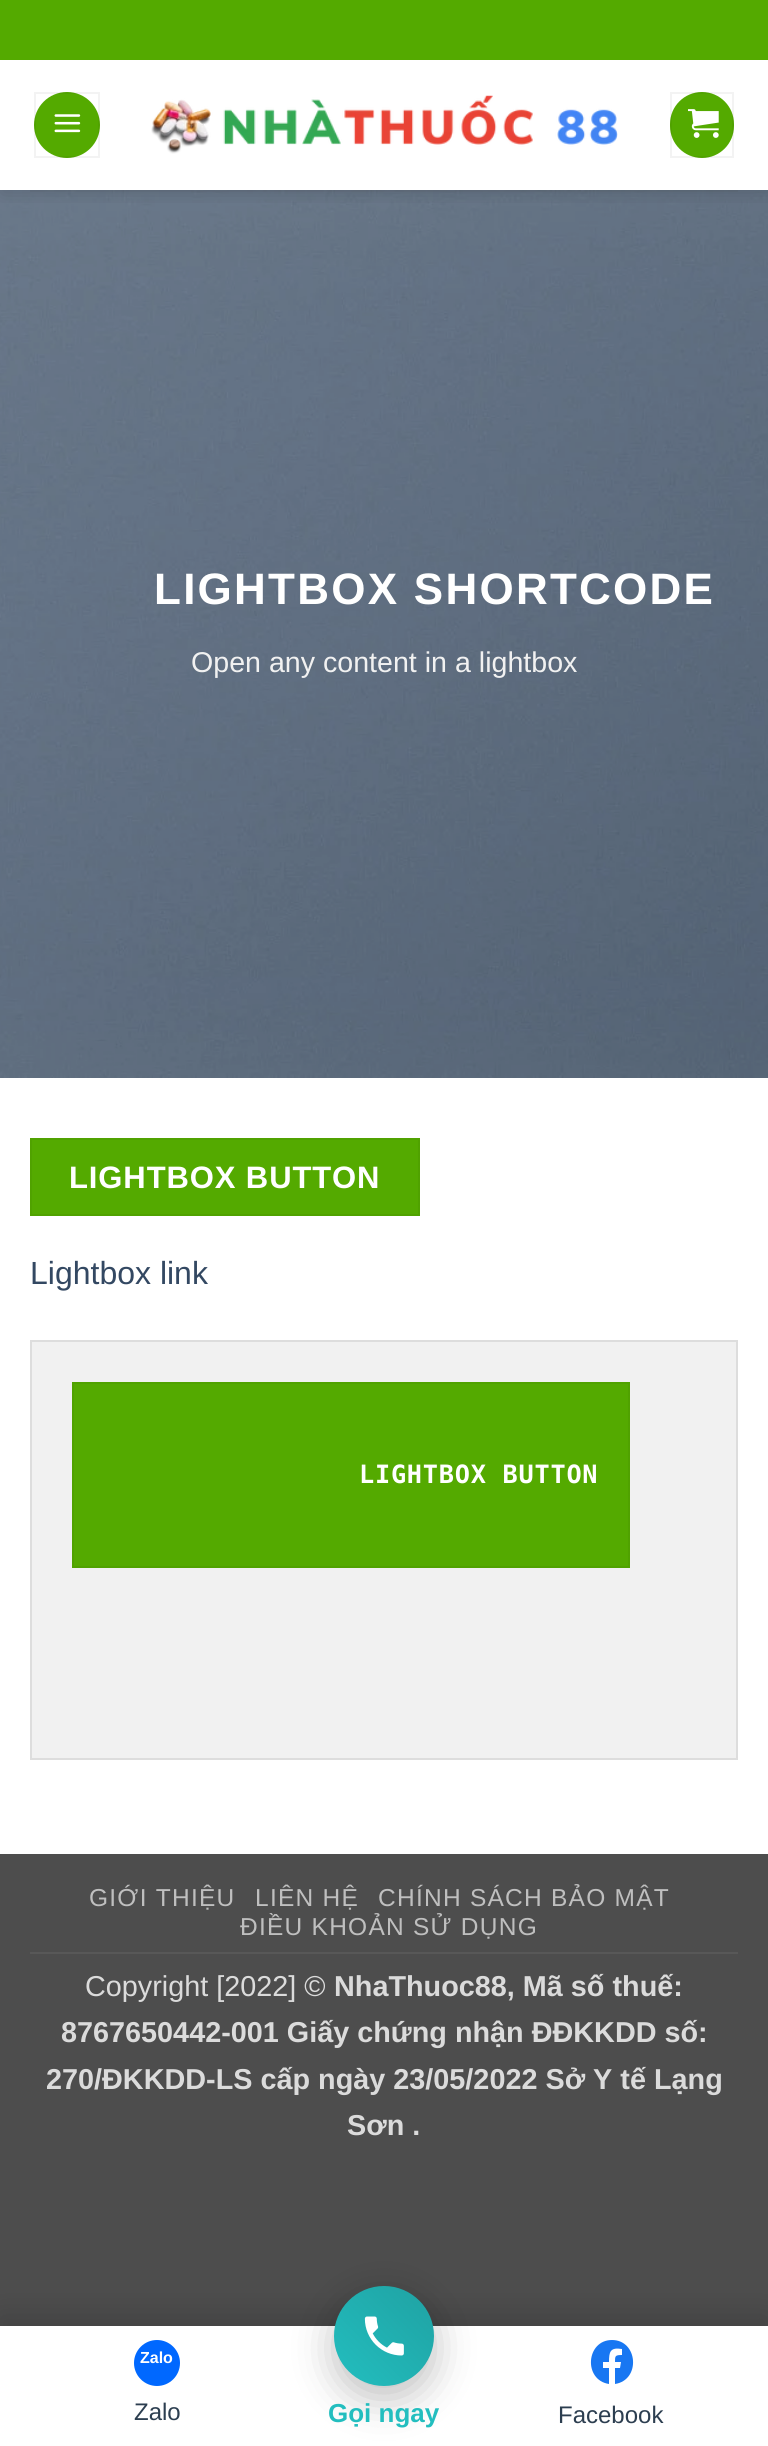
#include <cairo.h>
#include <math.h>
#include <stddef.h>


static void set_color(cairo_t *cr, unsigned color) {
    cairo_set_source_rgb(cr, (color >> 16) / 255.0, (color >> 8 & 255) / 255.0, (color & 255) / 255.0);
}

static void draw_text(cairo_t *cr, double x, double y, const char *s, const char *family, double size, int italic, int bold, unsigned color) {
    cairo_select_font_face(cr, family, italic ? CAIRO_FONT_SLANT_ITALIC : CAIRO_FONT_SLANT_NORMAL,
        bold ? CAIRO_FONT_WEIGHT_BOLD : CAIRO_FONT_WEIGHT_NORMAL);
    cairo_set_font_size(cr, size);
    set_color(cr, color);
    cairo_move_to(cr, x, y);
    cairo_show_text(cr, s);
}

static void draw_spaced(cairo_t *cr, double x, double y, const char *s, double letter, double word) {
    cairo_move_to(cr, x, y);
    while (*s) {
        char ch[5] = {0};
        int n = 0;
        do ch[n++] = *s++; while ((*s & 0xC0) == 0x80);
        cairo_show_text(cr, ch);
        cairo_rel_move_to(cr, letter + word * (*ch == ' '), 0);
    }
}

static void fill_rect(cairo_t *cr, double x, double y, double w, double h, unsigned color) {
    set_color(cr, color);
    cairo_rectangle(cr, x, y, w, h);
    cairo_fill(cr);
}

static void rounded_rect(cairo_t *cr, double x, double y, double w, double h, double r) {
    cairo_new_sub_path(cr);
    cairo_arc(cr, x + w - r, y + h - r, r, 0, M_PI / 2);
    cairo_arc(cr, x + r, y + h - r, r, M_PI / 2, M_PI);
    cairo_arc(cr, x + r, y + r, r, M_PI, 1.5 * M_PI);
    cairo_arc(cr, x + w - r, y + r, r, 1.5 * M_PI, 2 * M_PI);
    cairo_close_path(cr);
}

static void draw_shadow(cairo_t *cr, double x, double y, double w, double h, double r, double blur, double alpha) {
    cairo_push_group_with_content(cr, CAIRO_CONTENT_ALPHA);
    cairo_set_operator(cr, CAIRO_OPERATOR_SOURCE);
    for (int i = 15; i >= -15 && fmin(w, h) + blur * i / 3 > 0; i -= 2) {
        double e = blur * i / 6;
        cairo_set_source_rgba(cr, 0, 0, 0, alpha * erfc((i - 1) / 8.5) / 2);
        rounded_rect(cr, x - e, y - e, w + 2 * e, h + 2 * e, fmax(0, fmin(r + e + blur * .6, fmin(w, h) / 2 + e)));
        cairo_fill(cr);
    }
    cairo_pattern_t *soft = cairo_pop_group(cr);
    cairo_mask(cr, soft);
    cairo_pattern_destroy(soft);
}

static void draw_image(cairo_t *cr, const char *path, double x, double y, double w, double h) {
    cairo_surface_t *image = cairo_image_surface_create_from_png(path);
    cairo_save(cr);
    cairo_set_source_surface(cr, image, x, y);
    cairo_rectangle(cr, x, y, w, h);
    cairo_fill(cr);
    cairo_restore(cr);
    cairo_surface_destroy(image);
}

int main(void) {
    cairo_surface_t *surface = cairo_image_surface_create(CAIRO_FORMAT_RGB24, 768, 2446);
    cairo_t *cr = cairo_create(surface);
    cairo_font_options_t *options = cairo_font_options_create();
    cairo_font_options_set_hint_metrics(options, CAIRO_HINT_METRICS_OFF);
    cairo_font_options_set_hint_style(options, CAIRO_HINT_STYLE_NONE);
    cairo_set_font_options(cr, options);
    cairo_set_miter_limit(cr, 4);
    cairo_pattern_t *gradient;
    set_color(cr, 0x4D4D4D);
    cairo_paint(cr);
    fill_rect(cr, 0, 60, 768, 1794, 0xFFFFFF);
    draw_image(cr, "assets/img4.png", 0, 190, 768, 888);
    cairo_save(cr);
    cairo_rectangle(cr, 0, 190, 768, 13);
    cairo_clip(cr);
    set_color(cr, 0x000000);
    draw_shadow(cr, 2, 2, 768, 190, 0, 10, 0.15);
    cairo_restore(cr);
    fill_rect(cr, 0, 0, 768, 60, 0x54AA00);
    cairo_arc(cr, 67, 125, 33, 0, 2 * M_PI);
    cairo_fill(cr);
    cairo_rectangle(cr, 35, 93, 64, 64);
    cairo_set_source_rgba(cr, 0, 0, 0, 0.05);
    cairo_stroke(cr);
    draw_image(cr, "assets/img1.png", 54, 114, 27, 19);
    draw_image(cr, "assets/img2.png", 151, 95, 467, 59);
    set_color(cr, 0x54AA00);
    rounded_rect(cr, 670, 92, 64, 66, 32);
    cairo_fill(cr);
    cairo_rectangle(cr, 671, 93, 62, 64);
    cairo_set_source_rgba(cr, 0, 0, 0, 0.05);
    cairo_stroke(cr);
    draw_image(cr, "assets/img3.png", 688, 109, 31, 29);
    cairo_set_source_rgba(cr, 0.29, 0.29, 0.29, 0.1);
    cairo_rectangle(cr, 30, 190, 708, 2);
    cairo_fill(cr);
    cairo_select_font_face(cr, "Liberation Sans", CAIRO_FONT_SLANT_NORMAL, CAIRO_FONT_WEIGHT_BOLD);
    cairo_set_font_size(cr, 44);
    set_color(cr, 0xFFFFFF);
    draw_spaced(cr, 154, 604, "LIGHTBOX SHORTCODE", 2.25, 0);
    draw_text(cr, 191, 672, "Open any content in a lightbox", "Liberation Sans", 28.6, 0, 0, 0xF1F1F1);
    set_color(cr, 0x54AA00);
    cairo_rectangle(cr, 31, 1139, 388, 76);
    cairo_fill_preserve(cr);
    set_color(cr, 0x50A200);
    cairo_stroke(cr);
    cairo_select_font_face(cr, "Liberation Sans", CAIRO_FONT_SLANT_NORMAL, CAIRO_FONT_WEIGHT_BOLD);
    cairo_set_font_size(cr, 31);
    set_color(cr, 0xFFFFFF);
    draw_spaced(cr, 69, 1188, "LIGHTBOX BUTTON", 0.9, 0);
    draw_text(cr, 30, 1284, "Lightbox link", "Liberation Sans", 32, 0, 0, 0x334862);
    set_color(cr, 0xF1F1F1);
    cairo_rectangle(cr, 31, 1341, 706, 418);
    cairo_fill_preserve(cr);
    set_color(cr, 0xDDDDDD);
    cairo_stroke(cr);
    set_color(cr, 0x54AA00);
    cairo_rectangle(cr, 73, 1383, 556, 184);
    cairo_fill_preserve(cr);
    set_color(cr, 0x50A200);
    cairo_stroke(cr);
    cairo_select_font_face(cr, "DejaVu Sans Mono", CAIRO_FONT_SLANT_NORMAL, CAIRO_FONT_WEIGHT_BOLD);
    cairo_set_font_size(cr, 25.25);
    set_color(cr, 0xFFFFFF);
    draw_spaced(cr, 359, 1483, "LIGHTBOX BUTTON", 0.75, 0);
    fill_rect(cr, 30, 1952, 708, 2, 0x585858);
    cairo_select_font_face(cr, "Liberation Sans", CAIRO_FONT_SLANT_NORMAL, CAIRO_FONT_WEIGHT_NORMAL);
    cairo_set_font_size(cr, 24.5);
    set_color(cr, 0xBFBFBF);
    draw_spaced(cr, 89, 1906, "GIỚI THIỆU", 1.25, 0);
    draw_spaced(cr, 255, 1906, "LIÊN HỆ", 1.25, 0);
    draw_spaced(cr, 378, 1906, "CHÍNH SÁCH BẢO MẬT", 1.25, 0);
    draw_spaced(cr, 240, 1935, "ĐIỀU KHOẢN SỬ DỤNG", 1.25, 0);
    draw_text(cr, 85, 1996, "Copyright [2022] ©", "Liberation Sans", 28.8, 0, 0, 0xDBDBDB);
    draw_text(cr, 334, 1996, "NhaThuoc88, Mã số thuế:", "Liberation Sans", 28.8, 0, 1, 0xDBDBDB);
    draw_text(cr, 61, 2042, "8767650442-001 Giấy chứng nhận ĐĐKKDD số:", "Liberation Sans", 28.8, 0, 1, 0xDBDBDB);
    draw_text(cr, 46, 2089, "270/ĐKKDD-LS cấp ngày 23/05/2022 Sở Y tế Lạng", "Liberation Sans", 28.8, 0, 1, 0xDBDBDB);
    draw_text(cr, 347, 2135, "Sơn .", "Liberation Sans", 28.8, 0, 1, 0xDBDBDB);
    set_color(cr, 0x000000);
    draw_shadow(cr, 0, 2316, 768, 120, 0, 15, 0.15);
    fill_rect(cr, 0, 2326, 768, 120, 0xFFFFFF);
    set_color(cr, 0x0068FF);
    cairo_arc(cr, 157, 2363, 23, 0, 2 * M_PI);
    cairo_fill(cr);
    draw_text(cr, 140, 2363, "Zalo", "Liberation Sans", 16, 0, 1, 0xFFFFFF);
    draw_text(cr, 134, 2420, "Zalo", "Liberation Sans", 24, 0, 0, 0x2C3E50);
    set_color(cr, 0x1877F2);
    cairo_new_path(cr);
    cairo_move_to(cr, 612, 2340);
    cairo_curve_to(cr, 586, 2340, 583, 2380, 609, 2384);
    cairo_line_to(cr, 609, 2368);
    cairo_line_to(cr, 603, 2368);
    cairo_line_to(cr, 603, 2362);
    cairo_line_to(cr, 609, 2362);
    cairo_curve_to(cr, 609, 2352, 610, 2347, 622, 2349);
    cairo_line_to(cr, 622, 2355);
    cairo_curve_to(cr, 615, 2355, 615, 2356, 615, 2362);
    cairo_line_to(cr, 621, 2362);
    cairo_line_to(cr, 620, 2368);
    cairo_line_to(cr, 615, 2368);
    cairo_line_to(cr, 615, 2384);
    cairo_curve_to(cr, 641, 2380, 638, 2340, 612, 2340);
    cairo_fill(cr);
    draw_text(cr, 558, 2423, "Facebook", "Liberation Sans", 24, 0, 0, 0x2C3E50);
    set_color(cr, 0x000000);
    draw_shadow(cr, 334, 2298, 100, 100, 50, 20, 0.25);
    gradient = cairo_pattern_create_linear(334, 2386, 434, 2286);
    cairo_pattern_add_color_stop_rgba(gradient, 0, 0.137, 0.745, 0.749, 1);
    cairo_pattern_add_color_stop_rgba(gradient, 1, 0.122, 0.635, 0.639, 1);
    cairo_set_source(cr, gradient);
    cairo_pattern_destroy(gradient);
    cairo_arc(cr, 384, 2336, 50, 0, 2 * M_PI);
    cairo_fill(cr);
    draw_image(cr, "assets/img5.png", 364, 2316, 40, 40);
    draw_text(cr, 328, 2422, "Gọi ngay", "Liberation Sans", 26, 0, 1, 0x23BEBF);
    cairo_surface_write_to_png(surface, "output.png");
    cairo_font_options_destroy(options);
    cairo_destroy(cr);
    cairo_surface_destroy(surface);
    return 0;
}
